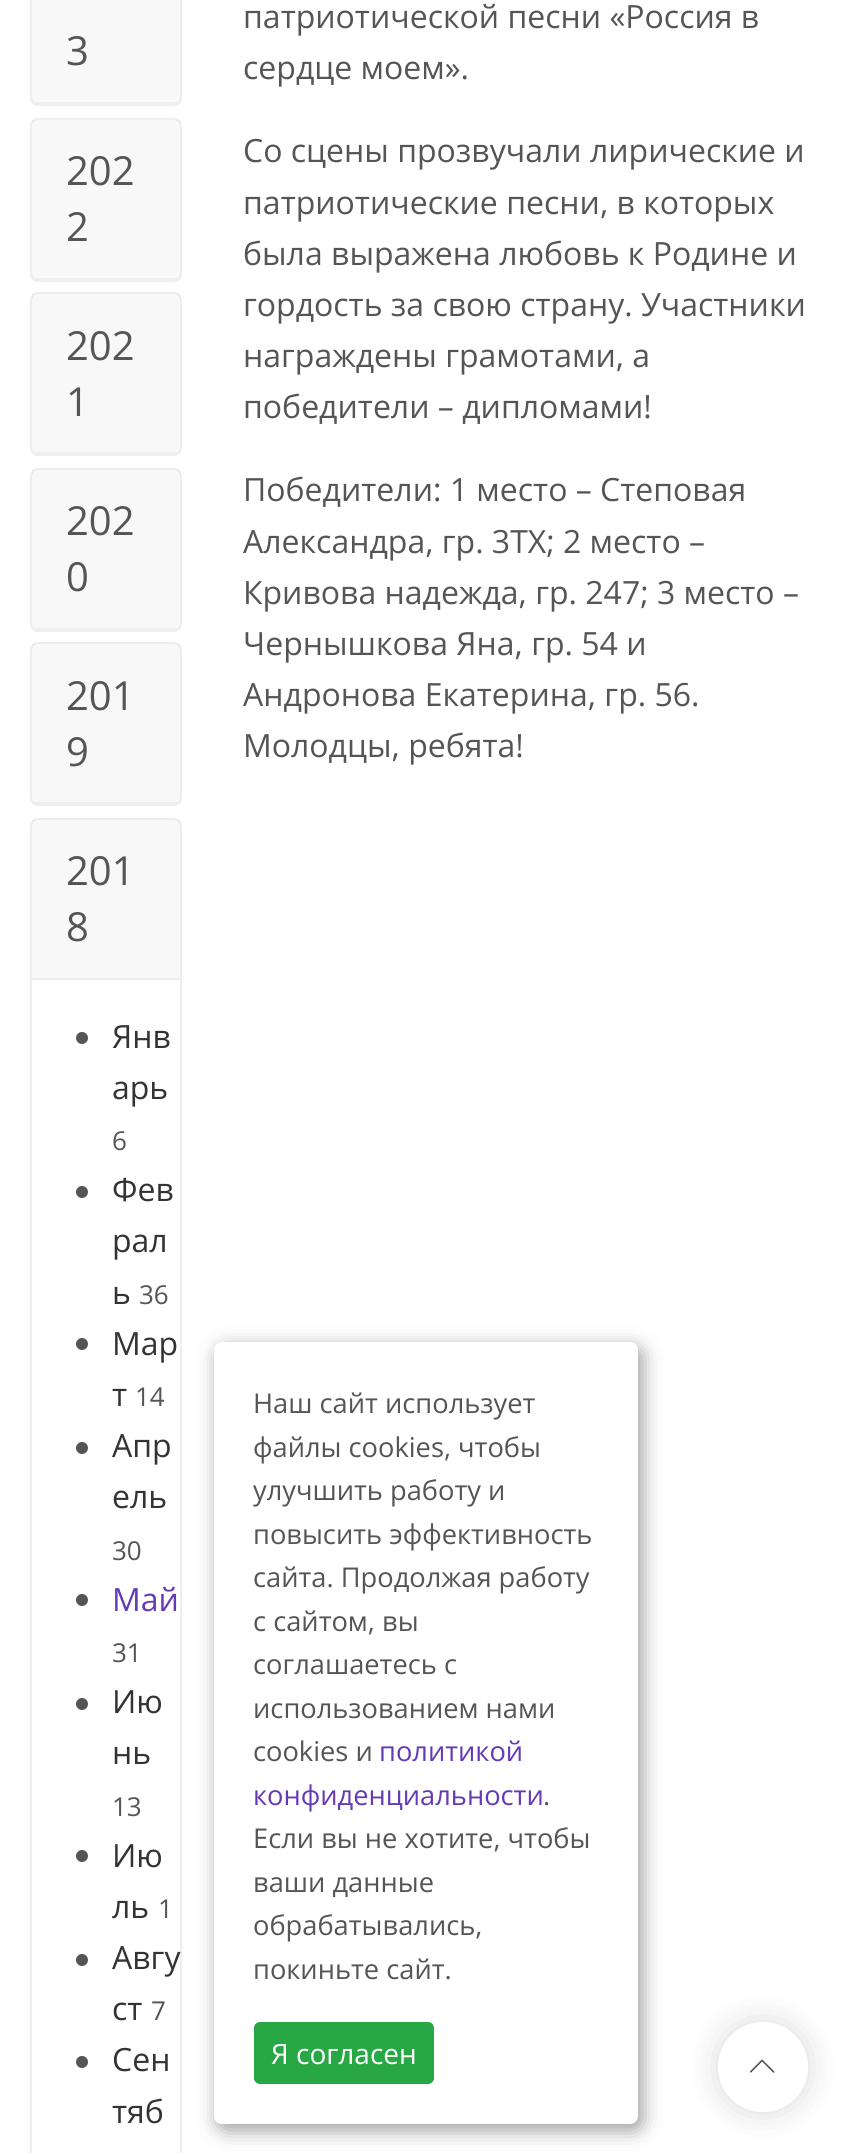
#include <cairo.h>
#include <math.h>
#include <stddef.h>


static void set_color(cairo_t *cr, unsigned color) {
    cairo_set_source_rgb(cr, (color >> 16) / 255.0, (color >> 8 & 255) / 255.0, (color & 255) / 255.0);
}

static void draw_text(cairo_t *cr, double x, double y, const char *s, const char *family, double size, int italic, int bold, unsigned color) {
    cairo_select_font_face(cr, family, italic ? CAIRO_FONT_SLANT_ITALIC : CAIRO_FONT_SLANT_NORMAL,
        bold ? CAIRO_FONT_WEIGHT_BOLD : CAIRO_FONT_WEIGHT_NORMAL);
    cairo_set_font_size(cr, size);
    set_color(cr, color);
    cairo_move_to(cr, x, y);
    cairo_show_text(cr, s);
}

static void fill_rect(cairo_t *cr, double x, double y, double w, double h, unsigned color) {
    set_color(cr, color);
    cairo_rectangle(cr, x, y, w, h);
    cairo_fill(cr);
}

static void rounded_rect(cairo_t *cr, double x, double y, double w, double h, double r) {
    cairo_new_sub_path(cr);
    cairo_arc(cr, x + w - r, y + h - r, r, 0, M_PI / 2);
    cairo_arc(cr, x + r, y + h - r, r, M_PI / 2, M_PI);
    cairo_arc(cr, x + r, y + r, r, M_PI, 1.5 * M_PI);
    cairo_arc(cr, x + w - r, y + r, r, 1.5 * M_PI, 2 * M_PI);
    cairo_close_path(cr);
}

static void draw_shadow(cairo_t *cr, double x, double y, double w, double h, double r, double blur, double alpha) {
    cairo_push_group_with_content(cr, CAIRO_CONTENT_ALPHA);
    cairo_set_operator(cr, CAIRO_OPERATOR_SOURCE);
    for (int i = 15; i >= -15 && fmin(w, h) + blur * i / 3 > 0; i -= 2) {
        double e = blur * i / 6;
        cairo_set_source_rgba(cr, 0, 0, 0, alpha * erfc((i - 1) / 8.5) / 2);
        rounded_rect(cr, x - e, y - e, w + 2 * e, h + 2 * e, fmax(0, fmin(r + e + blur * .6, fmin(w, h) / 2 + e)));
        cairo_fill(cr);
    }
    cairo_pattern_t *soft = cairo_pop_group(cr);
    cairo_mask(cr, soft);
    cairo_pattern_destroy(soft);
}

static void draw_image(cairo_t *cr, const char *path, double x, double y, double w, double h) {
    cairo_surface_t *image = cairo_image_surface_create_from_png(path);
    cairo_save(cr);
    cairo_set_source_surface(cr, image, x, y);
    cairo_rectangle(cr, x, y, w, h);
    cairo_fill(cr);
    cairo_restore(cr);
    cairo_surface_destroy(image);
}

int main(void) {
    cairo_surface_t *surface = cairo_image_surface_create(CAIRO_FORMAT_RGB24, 850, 2153);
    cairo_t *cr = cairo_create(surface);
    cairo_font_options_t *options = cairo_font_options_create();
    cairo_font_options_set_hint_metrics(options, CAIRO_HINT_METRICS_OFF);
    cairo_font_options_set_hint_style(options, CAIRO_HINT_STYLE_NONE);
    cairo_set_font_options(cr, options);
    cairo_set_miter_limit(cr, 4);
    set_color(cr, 0xFFFFFF);
    cairo_paint(cr);
    rounded_rect(cr, 31, -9, 150, 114, 7);
    set_color(cr, 0xEEEEEE);
    cairo_stroke(cr);
    cairo_set_source_rgba(cr, 0, 0, 0, 0.03);
    cairo_rectangle(cr, 32, 0, 148, 102);
    cairo_fill(cr);
    fill_rect(cr, 32, 102, 148, 2, 0xEEEEEE);
    draw_text(cr, 66, 65, "3", "Open Sans", 40, 0, 0, 0x555555);
    rounded_rect(cr, 31, 119, 150, 162, 7);
    set_color(cr, 0xEEEEEE);
    cairo_stroke(cr);
    cairo_set_source_rgba(cr, 0, 0, 0, 0.03);
    cairo_rectangle(cr, 32, 120, 148, 158);
    cairo_fill(cr);
    fill_rect(cr, 32, 278, 148, 2, 0xEEEEEE);
    draw_text(cr, 66, 185, "202", "Open Sans", 40, 0, 0, 0x555555);
    draw_text(cr, 66, 241, "2", "Open Sans", 40, 0, 0, 0x555555);
    rounded_rect(cr, 31, 293, 150, 162, 7);
    set_color(cr, 0xEEEEEE);
    cairo_stroke(cr);
    cairo_set_source_rgba(cr, 0, 0, 0, 0.03);
    cairo_rectangle(cr, 32, 294, 148, 158);
    cairo_fill(cr);
    fill_rect(cr, 32, 452, 148, 2, 0xEEEEEE);
    draw_text(cr, 66, 360, "202", "Open Sans", 40, 0, 0, 0x555555);
    draw_text(cr, 66, 416, "1", "Open Sans", 40, 0, 0, 0x555555);
    rounded_rect(cr, 31, 469, 150, 162, 7);
    set_color(cr, 0xEEEEEE);
    cairo_stroke(cr);
    cairo_set_source_rgba(cr, 0, 0, 0, 0.03);
    cairo_rectangle(cr, 32, 470, 148, 158);
    cairo_fill(cr);
    fill_rect(cr, 32, 628, 148, 2, 0xEEEEEE);
    draw_text(cr, 66, 535, "202", "Open Sans", 40, 0, 0, 0x555555);
    draw_text(cr, 66, 591, "0", "Open Sans", 40, 0, 0, 0x555555);
    rounded_rect(cr, 31, 643, 150, 162, 7);
    set_color(cr, 0xEEEEEE);
    cairo_stroke(cr);
    cairo_set_source_rgba(cr, 0, 0, 0, 0.03);
    cairo_rectangle(cr, 32, 644, 148, 158);
    cairo_fill(cr);
    fill_rect(cr, 32, 802, 148, 2, 0xEEEEEE);
    draw_text(cr, 66, 710, "201", "Open Sans", 40, 0, 0, 0x555555);
    draw_text(cr, 66, 766, "9", "Open Sans", 40, 0, 0, 0x555555);
    rounded_rect(cr, 31, 819, 150, 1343, 7);
    set_color(cr, 0xEEEEEE);
    cairo_stroke(cr);
    cairo_set_source_rgba(cr, 0, 0, 0, 0.03);
    cairo_rectangle(cr, 32, 820, 148, 158);
    cairo_fill(cr);
    fill_rect(cr, 32, 978, 148, 2, 0xEEEEEE);
    draw_text(cr, 66, 885, "201", "Open Sans", 40, 0, 0, 0x555555);
    draw_text(cr, 66, 941, "8", "Open Sans", 40, 0, 0, 0x555555);
    cairo_new_path(cr);
    cairo_arc(cr, 82, 1038, 6, 0, 2 * M_PI);
    cairo_fill(cr);
    draw_text(cr, 112, 1048, "Янв", "Open Sans", 32, 0, 0, 0x333333);
    draw_text(cr, 112, 1099, "арь", "Open Sans", 32, 0, 0, 0x333333);
    draw_text(cr, 112, 1150, "6", "Open Sans", 26, 0, 0, 0x555555);
    cairo_new_path(cr);
    cairo_arc(cr, 82, 1192, 6, 0, 2 * M_PI);
    cairo_fill(cr);
    draw_text(cr, 112, 1201, "Фев", "Open Sans", 32, 0, 0, 0x333333);
    draw_text(cr, 112, 1252, "рал", "Open Sans", 32, 0, 0, 0x333333);
    draw_text(cr, 112, 1304, "ь", "Open Sans", 32, 0, 0, 0x333333);
    draw_text(cr, 139, 1304, "36", "Open Sans", 26, 0, 0, 0x555555);
    cairo_new_path(cr);
    cairo_arc(cr, 82, 1344, 6, 0, 2 * M_PI);
    cairo_fill(cr);
    draw_text(cr, 112, 1355, "Мар", "Open Sans", 32, 0, 0, 0x333333);
    draw_text(cr, 112, 1406, "т", "Open Sans", 32, 0, 0, 0x333333);
    draw_text(cr, 135, 1406, "14", "Open Sans", 26, 0, 0, 0x555555);
    cairo_new_path(cr);
    cairo_arc(cr, 82, 1448, 6, 0, 2 * M_PI);
    cairo_fill(cr);
    draw_text(cr, 112, 1457, "Апр", "Open Sans", 32, 0, 0, 0x333333);
    draw_text(cr, 112, 1508, "ель", "Open Sans", 32, 0, 0, 0x333333);
    draw_text(cr, 112, 1560, "30", "Open Sans", 26, 0, 0, 0x555555);
    cairo_new_path(cr);
    cairo_arc(cr, 82, 1600, 6, 0, 2 * M_PI);
    cairo_fill(cr);
    draw_text(cr, 112, 1611, "Май", "Open Sans", 32, 0, 0, 0x6639B6);
    draw_text(cr, 112, 1662, "31", "Open Sans", 26, 0, 0, 0x555555);
    cairo_new_path(cr);
    cairo_arc(cr, 82, 1704, 6, 0, 2 * M_PI);
    cairo_fill(cr);
    draw_text(cr, 112, 1713, "Ию", "Open Sans", 32, 0, 0, 0x333333);
    draw_text(cr, 112, 1764, "нь", "Open Sans", 32, 0, 0, 0x333333);
    draw_text(cr, 112, 1816, "13", "Open Sans", 26, 0, 0, 0x555555);
    cairo_new_path(cr);
    cairo_arc(cr, 82, 1856, 6, 0, 2 * M_PI);
    cairo_fill(cr);
    draw_text(cr, 112, 1867, "Ию", "Open Sans", 32, 0, 0, 0x333333);
    draw_text(cr, 112, 1918, "ль", "Open Sans", 32, 0, 0, 0x333333);
    draw_text(cr, 158, 1918, "1", "Open Sans", 26, 0, 0, 0x555555);
    cairo_new_path(cr);
    cairo_arc(cr, 82, 1960, 6, 0, 2 * M_PI);
    cairo_fill(cr);
    draw_text(cr, 112, 1969, "Авгу", "Open Sans", 32, 0, 0, 0x333333);
    draw_text(cr, 112, 2020, "ст", "Open Sans", 32, 0, 0, 0x333333);
    draw_text(cr, 151, 2020, "7", "Open Sans", 26, 0, 0, 0x555555);
    cairo_new_path(cr);
    cairo_arc(cr, 82, 2062, 6, 0, 2 * M_PI);
    cairo_fill(cr);
    draw_text(cr, 112, 2071, "Сен", "Open Sans", 32, 0, 0, 0x333333);
    draw_text(cr, 112, 2123, "тяб", "Open Sans", 32, 0, 0, 0x333333);
    draw_text(cr, 243, 28, "патриотической песни «Россия в", "Open Sans", 32, 0, 0, 0x555555);
    draw_text(cr, 243, 79, "сердце моем».", "Open Sans", 32, 0, 0, 0x555555);
    draw_text(cr, 243, 162, "Со сцены прозвучали лирические и", "Open Sans", 32, 0, 0, 0x555555);
    draw_text(cr, 243, 214, "патриотические песни, в которых", "Open Sans", 32, 0, 0, 0x555555);
    draw_text(cr, 243, 265, "была выражена любовь к Родине и", "Open Sans", 32, 0, 0, 0x555555);
    draw_text(cr, 243, 316, "гордость за свою страну. Участники", "Open Sans", 32, 0, 0, 0x555555);
    draw_text(cr, 243, 367, "награждены грамотами, а", "Open Sans", 32, 0, 0, 0x555555);
    draw_text(cr, 243, 418, "победители – дипломами!", "Open Sans", 32, 0, 0, 0x555555);
    draw_text(cr, 243, 501, "Победители: 1 место – Степовая", "Open Sans", 32, 0, 0, 0x555555);
    draw_text(cr, 243, 553, "Александра, гр. 3ТХ; 2 место –", "Open Sans", 32, 0, 0, 0x555555);
    draw_text(cr, 243, 604, "Кривова надежда, гр. 247; 3 место –", "Open Sans", 32, 0, 0, 0x555555);
    draw_text(cr, 243, 655, "Чернышкова Яна, гр. 54 и", "Open Sans", 32, 0, 0, 0x555555);
    draw_text(cr, 243, 706, "Андронова Екатерина, гр. 56.", "Open Sans", 32, 0, 0, 0x555555);
    draw_text(cr, 243, 757, "Молодцы, ребята!", "Open Sans", 32, 0, 0, 0x555555);
    cairo_save(cr);
    cairo_set_fill_rule(cr, CAIRO_FILL_RULE_EVEN_ODD);
    cairo_new_path(cr);
    cairo_move_to(cr, 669, 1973);
    cairo_line_to(cr, 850, 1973);
    cairo_line_to(cr, 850, 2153);
    cairo_line_to(cr, 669, 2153);
    cairo_close_path(cr);
    cairo_move_to(cr, 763, 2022);
    cairo_curve_to(cr, 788, 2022, 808, 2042, 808, 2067);
    cairo_curve_to(cr, 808, 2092, 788, 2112, 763, 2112);
    cairo_curve_to(cr, 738, 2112, 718, 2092, 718, 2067);
    cairo_curve_to(cr, 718, 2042, 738, 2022, 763, 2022);
    cairo_close_path(cr);
    cairo_clip(cr);
    set_color(cr, 0x000000);
    draw_shadow(cr, 718, 2022, 90, 90, 45, 16, 0.15);
    cairo_restore(cr);
    draw_image(cr, "assets/img1.png", 750, 2059, 25, 14);
    set_color(cr, 0x000000);
    draw_shadow(cr, 218, 1348, 424, 782, 8, 10, 0.4);
    set_color(cr, 0xFFFFFF);
    rounded_rect(cr, 214, 1342, 424, 782, 8);
    cairo_fill(cr);
    draw_text(cr, 253, 1413, "Наш сайт использует", "Open Sans", 27.25, 0, 0, 0x555555);
    draw_text(cr, 253, 1457, "файлы cookies, чтобы", "Open Sans", 27.25, 0, 0, 0x555555);
    draw_text(cr, 253, 1500, "улучшить работу и", "Open Sans", 27.25, 0, 0, 0x555555);
    draw_text(cr, 253, 1544, "повысить эффективность", "Open Sans", 27.25, 0, 0, 0x555555);
    draw_text(cr, 253, 1587, "сайта. Продолжая работу", "Open Sans", 27.25, 0, 0, 0x555555);
    draw_text(cr, 253, 1631, "с сайтом, вы", "Open Sans", 27.25, 0, 0, 0x555555);
    draw_text(cr, 253, 1674, "соглашаетесь с", "Open Sans", 27.25, 0, 0, 0x555555);
    draw_text(cr, 253, 1718, "использованием нами", "Open Sans", 27.25, 0, 0, 0x555555);
    draw_text(cr, 253, 1761, "cookies и", "Open Sans", 27.25, 0, 0, 0x555555);
    draw_text(cr, 379, 1761, "политикой", "Open Sans", 27.25, 0, 0, 0x6639B6);
    draw_text(cr, 253, 1805, "конфиденциальности", "Open Sans", 27.25, 0, 0, 0x6639B6);
    draw_text(cr, 543, 1805, ".", "Open Sans", 27.25, 0, 0, 0x555555);
    draw_text(cr, 253, 1848, "Если вы не хотите, чтобы", "Open Sans", 27.25, 0, 0, 0x555555);
    draw_text(cr, 253, 1892, "ваши данные", "Open Sans", 27.25, 0, 0, 0x555555);
    draw_text(cr, 253, 1935, "обрабатывались,", "Open Sans", 27.25, 0, 0, 0x555555);
    draw_text(cr, 253, 1979, "покиньте сайт.", "Open Sans", 27.25, 0, 0, 0x555555);
    set_color(cr, 0x28A745);
    rounded_rect(cr, 255, 2023, 178, 60, 5);
    cairo_fill_preserve(cr);
    cairo_stroke(cr);
    draw_text(cr, 271, 2064, "Я согласен", "Open Sans", 28, 0, 0, 0xFFFFFF);
    cairo_surface_write_to_png(surface, "output.png");
    cairo_font_options_destroy(options);
    cairo_destroy(cr);
    cairo_surface_destroy(surface);
    return 0;
}
